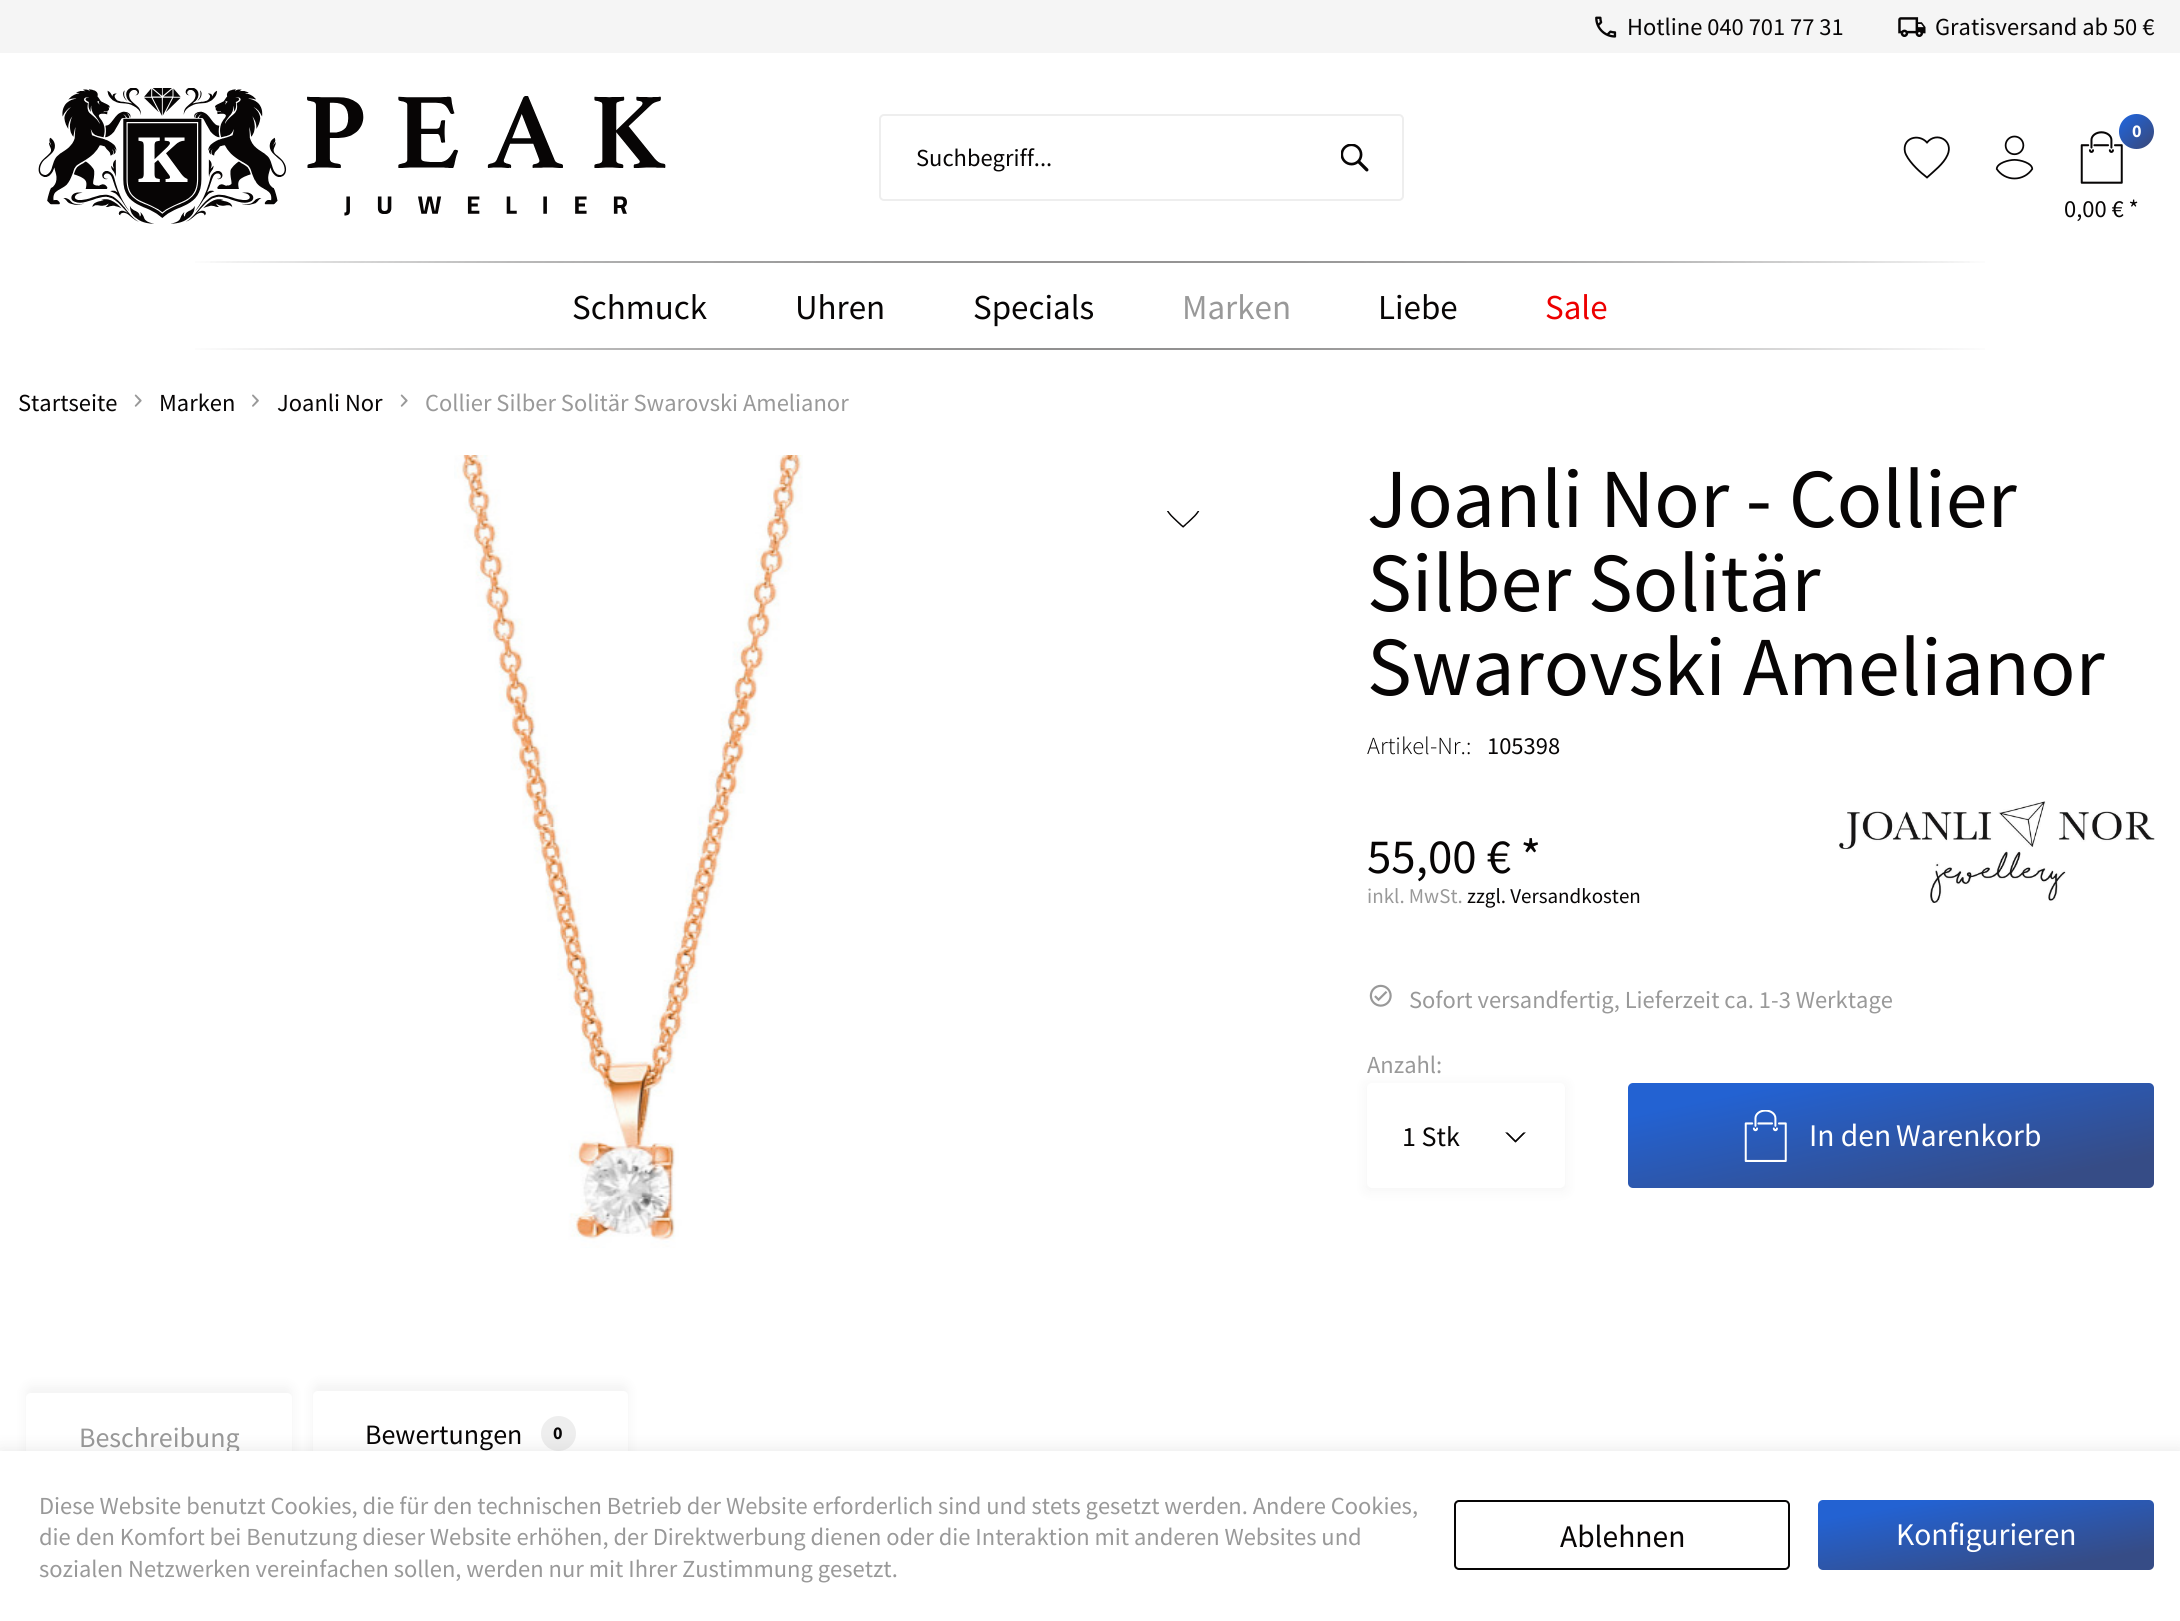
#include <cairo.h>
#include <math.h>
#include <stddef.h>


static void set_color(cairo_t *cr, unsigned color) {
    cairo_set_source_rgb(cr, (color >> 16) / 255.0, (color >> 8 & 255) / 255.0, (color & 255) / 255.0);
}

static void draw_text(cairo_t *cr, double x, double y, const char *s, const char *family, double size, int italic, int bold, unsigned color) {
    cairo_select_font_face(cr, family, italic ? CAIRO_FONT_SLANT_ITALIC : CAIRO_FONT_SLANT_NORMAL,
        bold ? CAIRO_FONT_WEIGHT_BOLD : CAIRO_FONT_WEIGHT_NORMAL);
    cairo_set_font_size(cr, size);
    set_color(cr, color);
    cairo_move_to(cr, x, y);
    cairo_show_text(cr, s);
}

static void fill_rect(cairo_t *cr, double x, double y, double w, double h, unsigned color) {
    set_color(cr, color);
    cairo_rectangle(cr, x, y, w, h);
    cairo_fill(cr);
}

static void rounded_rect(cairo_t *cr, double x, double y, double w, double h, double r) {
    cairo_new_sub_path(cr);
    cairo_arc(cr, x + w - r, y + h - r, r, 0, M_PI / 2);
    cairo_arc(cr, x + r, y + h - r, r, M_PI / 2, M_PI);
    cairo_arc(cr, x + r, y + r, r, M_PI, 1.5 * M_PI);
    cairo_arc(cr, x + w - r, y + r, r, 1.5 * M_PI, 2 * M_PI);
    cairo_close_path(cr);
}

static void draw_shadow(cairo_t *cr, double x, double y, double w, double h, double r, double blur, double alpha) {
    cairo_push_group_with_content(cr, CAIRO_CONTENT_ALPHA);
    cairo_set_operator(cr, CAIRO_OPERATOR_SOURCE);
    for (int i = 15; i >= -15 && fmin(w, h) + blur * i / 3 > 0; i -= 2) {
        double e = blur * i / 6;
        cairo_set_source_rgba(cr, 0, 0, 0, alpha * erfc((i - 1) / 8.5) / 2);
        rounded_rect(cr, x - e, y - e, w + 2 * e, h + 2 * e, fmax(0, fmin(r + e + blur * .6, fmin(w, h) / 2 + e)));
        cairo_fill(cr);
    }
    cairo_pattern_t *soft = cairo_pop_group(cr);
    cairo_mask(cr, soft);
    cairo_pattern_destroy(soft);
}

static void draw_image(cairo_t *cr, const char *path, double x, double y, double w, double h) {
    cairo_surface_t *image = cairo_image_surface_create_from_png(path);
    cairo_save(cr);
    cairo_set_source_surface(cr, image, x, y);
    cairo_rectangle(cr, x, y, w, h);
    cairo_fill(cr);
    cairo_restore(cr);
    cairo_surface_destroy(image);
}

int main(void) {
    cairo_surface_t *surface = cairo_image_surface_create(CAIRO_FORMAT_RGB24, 2180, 1621);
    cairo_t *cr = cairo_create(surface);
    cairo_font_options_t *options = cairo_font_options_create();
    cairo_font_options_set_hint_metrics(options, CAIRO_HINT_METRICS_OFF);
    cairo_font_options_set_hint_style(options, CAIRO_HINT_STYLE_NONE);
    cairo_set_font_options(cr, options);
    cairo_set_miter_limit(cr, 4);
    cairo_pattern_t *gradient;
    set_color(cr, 0xFFFFFF);
    cairo_paint(cr);
    fill_rect(cr, 0, 0, 2180, 53, 0xF5F5F5);
    draw_image(cr, "assets/img1.png", 1595, 16, 22, 22);
    draw_text(cr, 1627, 35, "Hotline 040 701 77 31", "Source Sans Pro", 24.5, 0, 0, 0x070505);
    draw_image(cr, "assets/img2.png", 1898, 17, 28, 20);
    draw_text(cr, 1935, 35, "Gratisversand ab 50 €", "Source Sans Pro", 24.5, 0, 0, 0x070505);
    draw_image(cr, "assets/img3.png", 38, 88, 628, 136);
    rounded_rect(cr, 880, 115, 523, 85, 4);
    set_color(cr, 0xEEEEEE);
    cairo_stroke(cr);
    draw_text(cr, 916, 166, "Suchbegriff...", "Source Sans Pro", 24.5, 0, 0, 0x070505);
    draw_image(cr, "assets/img4.png", 1341, 144, 28, 28);
    cairo_new_path(cr);
    cairo_move_to(cr, 1924, 175);
    cairo_curve_to(cr, 1918, 170.5, 1907, 159.5, 1905, 152);
    cairo_curve_to(cr, 1902, 138, 1918.5, 133, 1927, 142.5);
    cairo_curve_to(cr, 1936.5, 131, 1954, 140.5, 1947.5, 155);
    cairo_curve_to(cr, 1943.5, 164, 1934, 171, 1927, 177.5);
    cairo_close_path(cr);
    cairo_set_line_width(cr, 1.8);
    cairo_stroke(cr);
    draw_image(cr, "assets/img5.png", 1995, 135, 39, 45);
    draw_image(cr, "assets/img6.png", 2080, 131, 43, 53);
    gradient = cairo_pattern_create_linear(2120, 113, 2154, 149);
    cairo_pattern_add_color_stop_rgba(gradient, 0.15, 0.137, 0.384, 0.824, 1);
    cairo_pattern_add_color_stop_rgba(gradient, 0.85, 0.212, 0.298, 0.525, 1);
    cairo_set_source(cr, gradient);
    cairo_pattern_destroy(gradient);
    cairo_arc(cr, 2136.5, 131.5, 17.5, 0, 2 * M_PI);
    cairo_fill(cr);
    draw_text(cr, 2132, 137, "0", "Source Sans Pro", 18, 0, 1, 0xFFFFFF);
    draw_text(cr, 2064, 217, "0,00 € *", "Source Sans Pro", 24.5, 0, 0, 0x070505);
    gradient = cairo_pattern_create_radial(0, 0, 0, 0, 0, 1);
    cairo_pattern_set_matrix(gradient, &(cairo_matrix_t){1.0 / 1090, 0, 0, 1.0 / 0.9, -1.0 * 1090 / 1090, -1.0 * 262 / 0.9});
    cairo_pattern_add_color_stop_rgba(gradient, 0, 0.027, 0.02, 0.02, 1);
    cairo_pattern_add_color_stop_rgba(gradient, 1, 1, 1, 1, 1);
    cairo_set_source(cr, gradient);
    cairo_pattern_destroy(gradient);
    cairo_rectangle(cr, 195, 261, 1790, 2);
    cairo_fill(cr);
    gradient = cairo_pattern_create_radial(0, 0, 0, 0, 0, 1);
    cairo_pattern_set_matrix(gradient, &(cairo_matrix_t){1.0 / 1090, 0, 0, 1.0 / 0.9, -1.0 * 1090 / 1090, -1.0 * 262 / 0.9});
    cairo_pattern_add_color_stop_rgba(gradient, 0, 0.6, 0.6, 0.6, 1);
    cairo_pattern_add_color_stop_rgba(gradient, 1, 0.6, 0.6, 0.6, 0);
    cairo_set_source(cr, gradient);
    cairo_pattern_destroy(gradient);
    cairo_rectangle(cr, 210, 261, 1760, 2);
    cairo_fill(cr);
    draw_text(cr, 572, 319, "Schmuck", "Source Sans Pro", 35, 0, 0, 0x070505);
    draw_text(cr, 795, 319, "Uhren", "Source Sans Pro", 35, 0, 0, 0x070505);
    draw_text(cr, 973, 319, "Specials", "Source Sans Pro", 35, 0, 0, 0x070505);
    draw_text(cr, 1182, 319, "Marken", "Source Sans Pro", 35, 0, 0, 0x999999);
    draw_text(cr, 1378, 319, "Liebe", "Source Sans Pro", 35, 0, 0, 0x070505);
    draw_text(cr, 1545, 319, "Sale", "Source Sans Pro", 35, 0, 0, 0xED0000);
    gradient = cairo_pattern_create_radial(0, 0, 0, 0, 0, 1);
    cairo_pattern_set_matrix(gradient, &(cairo_matrix_t){1.0 / 1090, 0, 0, 1.0 / 0.9, -1.0 * 1090 / 1090, -1.0 * 349 / 0.9});
    cairo_pattern_add_color_stop_rgba(gradient, 0, 0.027, 0.02, 0.02, 1);
    cairo_pattern_add_color_stop_rgba(gradient, 1, 1, 1, 1, 1);
    cairo_set_source(cr, gradient);
    cairo_pattern_destroy(gradient);
    cairo_rectangle(cr, 195, 348, 1790, 2);
    cairo_fill(cr);
    draw_text(cr, 18, 411, "Startseite", "Source Sans Pro", 24.5, 0, 0, 0x070505);
    draw_image(cr, "assets/img7.png", 134, 394, 8, 13);
    draw_text(cr, 159, 411, "Marken", "Source Sans Pro", 24.5, 0, 0, 0x070505);
    draw_image(cr, "assets/img8.png", 252, 394, 7, 13);
    draw_text(cr, 277, 411, "Joanli Nor", "Source Sans Pro", 24.5, 0, 0, 0x070505);
    draw_image(cr, "assets/img7.png", 400, 394, 8, 13);
    draw_text(cr, 425, 411, "Collier Silber Solitär Swarovski Amelianor", "Source Sans Pro", 24.5, 0, 0, 0x999999);
    draw_image(cr, "assets/img9.png", 454, 455, 349, 793);
    draw_image(cr, "assets/img10.png", 1167, 511, 33, 17);
    draw_text(cr, 1367, 527, "Joanli Nor - Collier", "Source Sans Pro", 84, 0, 0, 0x070505);
    draw_text(cr, 1367, 611, "Silber Solitär", "Source Sans Pro", 84, 0, 0, 0x070505);
    draw_text(cr, 1367, 695, "Swarovski Amelianor", "Source Sans Pro", 84, 0, 0, 0x070505);
    draw_text(cr, 1367, 754, "Artikel-Nr.:", "Source Sans Pro Light", 24.5, 0, 0, 0x070505);
    draw_text(cr, 1487, 754, "105398", "Source Sans Pro", 24.5, 0, 0, 0x070505);
    draw_text(cr, 1367, 873, "55,00 € *", "Source Sans Pro", 49, 0, 0, 0x070505);
    draw_text(cr, 1367, 903, "inkl. MwSt.", "Source Sans Pro", 21, 0, 0, 0x999999);
    draw_text(cr, 1467, 903, "zzgl. Versandkosten", "Source Sans Pro", 21, 0, 0, 0x070505);
    draw_image(cr, "assets/img11.png", 1839, 801, 316, 102);
    draw_image(cr, "assets/img12.png", 1369, 984, 23, 23);
    draw_text(cr, 1409, 1008, "Sofort versandfertig, Lieferzeit ca. 1-3 Werktage", "Source Sans Pro", 24.5, 0, 0, 0x999999);
    draw_text(cr, 1367, 1073, "Anzahl:", "Source Sans Pro", 24.5, 0, 0, 0x999999);
    set_color(cr, 0x000000);
    draw_shadow(cr, 1367, 1085, 198, 105, 0, 7, 0.05);
    set_color(cr, 0xFFFFFF);
    rounded_rect(cr, 1367, 1083, 198, 105, 5);
    cairo_fill(cr);
    draw_text(cr, 1402, 1146, "1 Stk", "Source Sans Pro", 28, 0, 0, 0x070505);
    draw_image(cr, "assets/img13.png", 1505, 1132, 21, 11);
    gradient = cairo_pattern_create_linear(1869, 1032, 1913, 1239);
    cairo_pattern_add_color_stop_rgba(gradient, 0.15, 0.137, 0.384, 0.824, 1);
    cairo_pattern_add_color_stop_rgba(gradient, 0.85, 0.212, 0.298, 0.525, 1);
    cairo_set_source(cr, gradient);
    cairo_pattern_destroy(gradient);
    rounded_rect(cr, 1628, 1083, 526, 105, 5);
    cairo_fill(cr);
    draw_image(cr, "assets/img14.png", 1744, 1110, 43, 52);
    draw_text(cr, 1809, 1146, "In den", "Source Sans Pro", 31.5, 0, 0, 0xFFFFFF);
    draw_text(cr, 1896, 1146, "Warenkorb", "Source Sans Pro", 31.5, 0, 0, 0xFFFFFF);
    set_color(cr, 0x000000);
    draw_shadow(cr, 26, 1386, 266, 88, 5, 6, 0.05);
    set_color(cr, 0xFFFFFF);
    cairo_new_path(cr);
    cairo_move_to(cr, 31, 1393);
    cairo_line_to(cr, 287, 1393);
    cairo_curve_to(cr, 290, 1393, 292, 1395, 292, 1398);
    cairo_line_to(cr, 292, 1481);
    cairo_line_to(cr, 26, 1481);
    cairo_line_to(cr, 26, 1398);
    cairo_curve_to(cr, 26, 1395, 28, 1393, 31, 1393);
    cairo_close_path(cr);
    cairo_fill(cr);
    draw_text(cr, 79, 1447, "Beschreibung", "Source Sans Pro", 28, 0, 0, 0x999999);
    set_color(cr, 0x000000);
    draw_shadow(cr, 313, 1384, 315, 84, 5, 6, 0.05);
    set_color(cr, 0xFFFFFF);
    cairo_new_path(cr);
    cairo_move_to(cr, 318, 1391);
    cairo_line_to(cr, 623, 1391);
    cairo_curve_to(cr, 626, 1391, 628, 1393, 628, 1396);
    cairo_line_to(cr, 628, 1475);
    cairo_line_to(cr, 313, 1475);
    cairo_line_to(cr, 313, 1396);
    cairo_curve_to(cr, 313, 1393, 315, 1391, 318, 1391);
    cairo_close_path(cr);
    cairo_fill(cr);
    draw_text(cr, 365, 1444, "Bewertungen", "Source Sans Pro", 28, 0, 0, 0x070505);
    set_color(cr, 0xEEEEEE);
    cairo_new_path(cr);
    cairo_arc(cr, 558.5, 1433.5, 17.5, 0, 2 * M_PI);
    cairo_fill(cr);
    draw_text(cr, 553, 1439, "0", "Source Sans Pro", 18, 0, 1, 0x070505);
    set_color(cr, 0x000000);
    draw_shadow(cr, 0, 1451, 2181, 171, 0, 9, 0.1);
    fill_rect(cr, 0, 1451, 2180, 170, 0xFFFFFF);
    draw_text(cr, 39, 1514, "Diese Website benutzt Cookies, die für den technischen Betrieb der Website erforderlich sind und stets gesetzt werden. Andere Cookies,", "Source Sans Pro", 24.5, 0, 0, 0x999999);
    draw_text(cr, 39, 1545, "die den Komfort bei Benutzung dieser Website erhöhen, der Direktwerbung dienen oder die Interaktion mit anderen Websites und", "Source Sans Pro", 24.5, 0, 0, 0x999999);
    draw_text(cr, 39, 1577, "sozialen Netzwerken vereinfachen sollen, werden nur mit Ihrer Zustimmung gesetzt.", "Source Sans Pro", 24.5, 0, 0, 0x999999);
    rounded_rect(cr, 1455, 1501, 334, 68, 4);
    set_color(cr, 0x070505);
    cairo_set_line_width(cr, 2);
    cairo_stroke(cr);
    draw_text(cr, 1560, 1547, "Ablehnen", "Source Sans Pro", 31.5, 0, 0, 0x070505);
    gradient = cairo_pattern_create_linear(1975, 1473, 1997, 1597);
    cairo_pattern_add_color_stop_rgba(gradient, 0.15, 0.137, 0.384, 0.824, 1);
    cairo_pattern_add_color_stop_rgba(gradient, 0.85, 0.212, 0.298, 0.525, 1);
    cairo_set_source(cr, gradient);
    cairo_pattern_destroy(gradient);
    rounded_rect(cr, 1818, 1500, 336, 70, 5);
    cairo_fill(cr);
    draw_text(cr, 1896, 1545, "Konfigurieren", "Source Sans Pro", 31.5, 0, 0, 0xFFFFFF);
    cairo_surface_write_to_png(surface, "output.png");
    cairo_font_options_destroy(options);
    cairo_destroy(cr);
    cairo_surface_destroy(surface);
    return 0;
}
